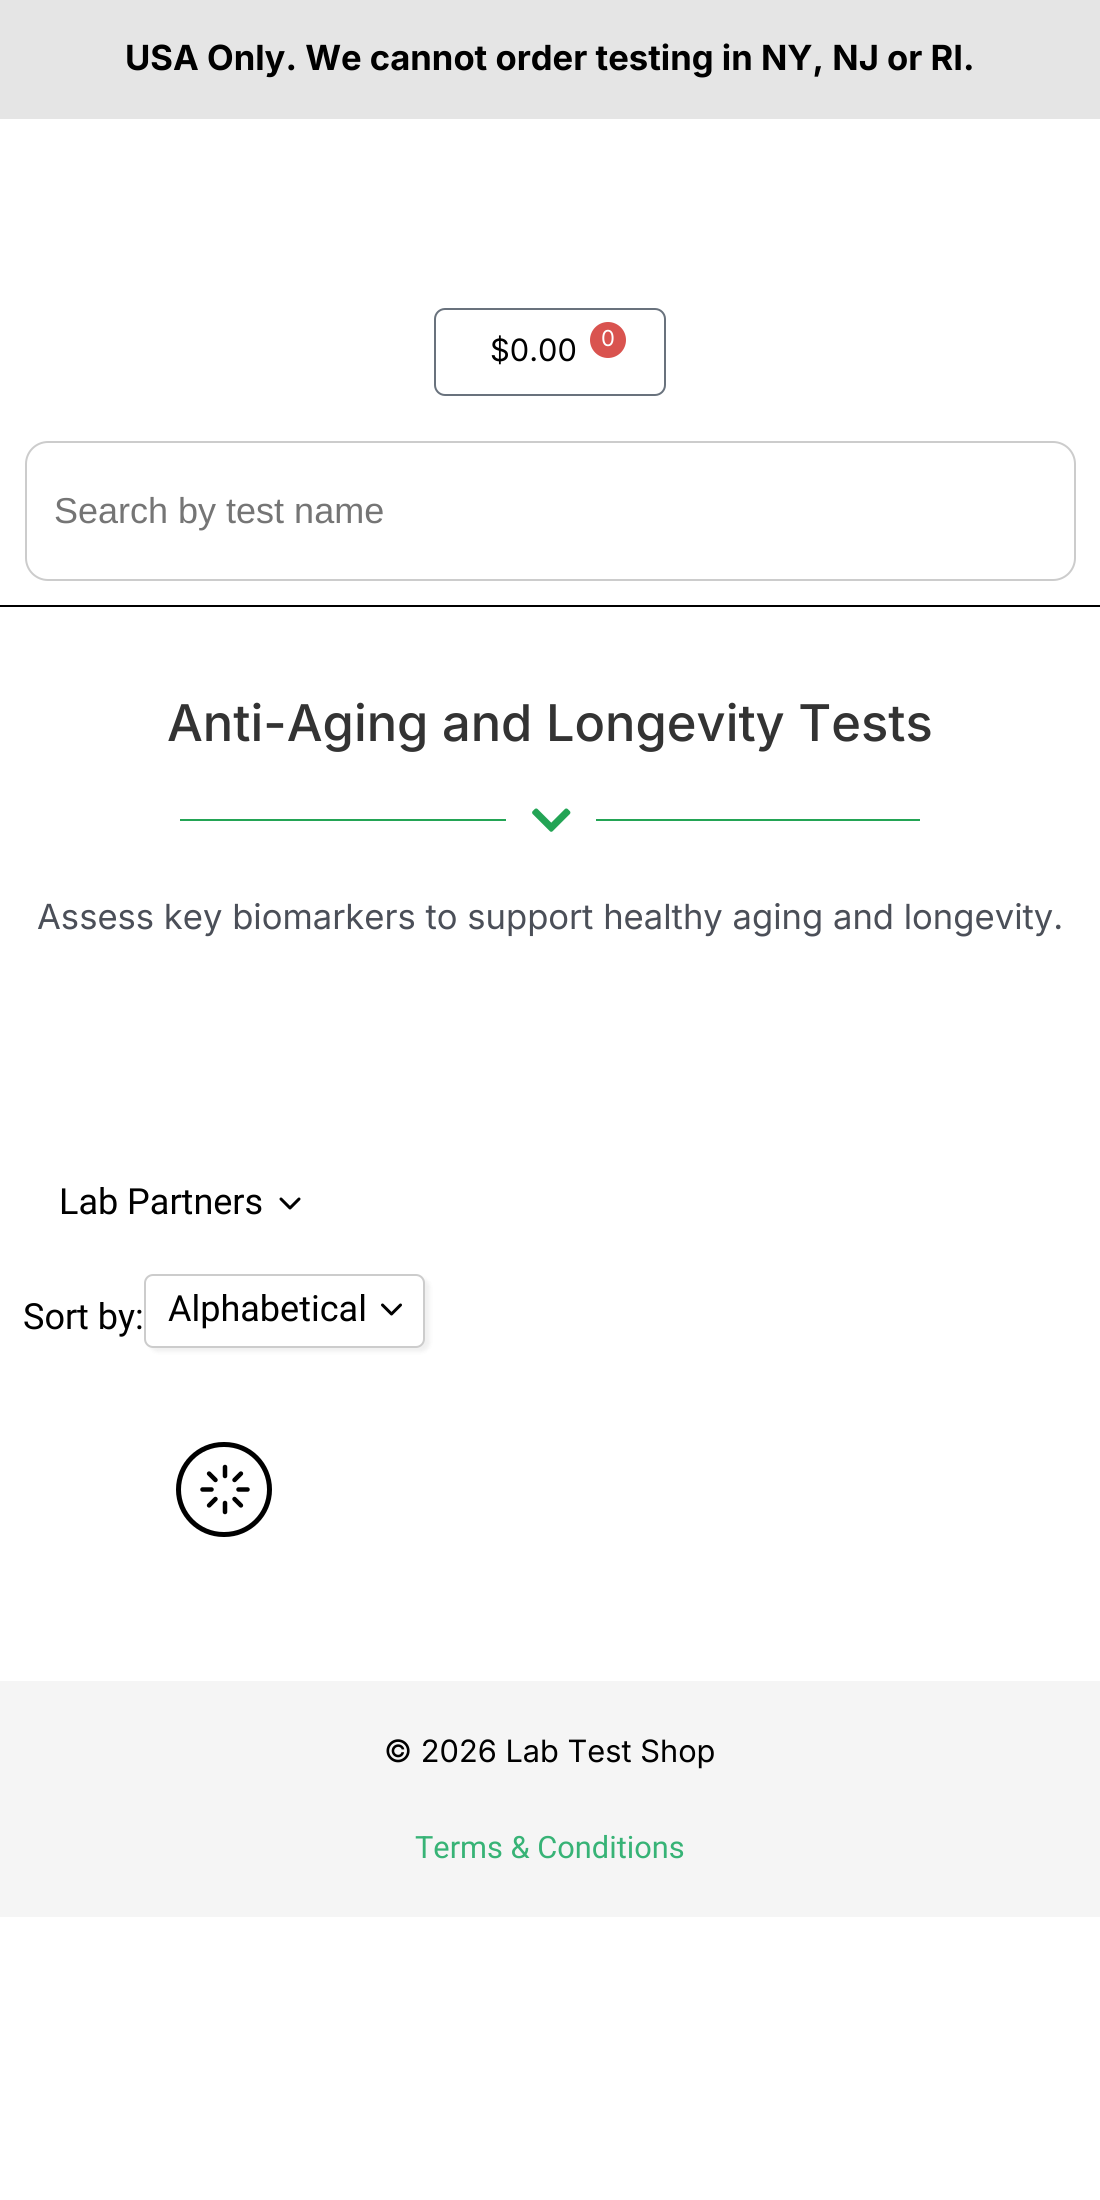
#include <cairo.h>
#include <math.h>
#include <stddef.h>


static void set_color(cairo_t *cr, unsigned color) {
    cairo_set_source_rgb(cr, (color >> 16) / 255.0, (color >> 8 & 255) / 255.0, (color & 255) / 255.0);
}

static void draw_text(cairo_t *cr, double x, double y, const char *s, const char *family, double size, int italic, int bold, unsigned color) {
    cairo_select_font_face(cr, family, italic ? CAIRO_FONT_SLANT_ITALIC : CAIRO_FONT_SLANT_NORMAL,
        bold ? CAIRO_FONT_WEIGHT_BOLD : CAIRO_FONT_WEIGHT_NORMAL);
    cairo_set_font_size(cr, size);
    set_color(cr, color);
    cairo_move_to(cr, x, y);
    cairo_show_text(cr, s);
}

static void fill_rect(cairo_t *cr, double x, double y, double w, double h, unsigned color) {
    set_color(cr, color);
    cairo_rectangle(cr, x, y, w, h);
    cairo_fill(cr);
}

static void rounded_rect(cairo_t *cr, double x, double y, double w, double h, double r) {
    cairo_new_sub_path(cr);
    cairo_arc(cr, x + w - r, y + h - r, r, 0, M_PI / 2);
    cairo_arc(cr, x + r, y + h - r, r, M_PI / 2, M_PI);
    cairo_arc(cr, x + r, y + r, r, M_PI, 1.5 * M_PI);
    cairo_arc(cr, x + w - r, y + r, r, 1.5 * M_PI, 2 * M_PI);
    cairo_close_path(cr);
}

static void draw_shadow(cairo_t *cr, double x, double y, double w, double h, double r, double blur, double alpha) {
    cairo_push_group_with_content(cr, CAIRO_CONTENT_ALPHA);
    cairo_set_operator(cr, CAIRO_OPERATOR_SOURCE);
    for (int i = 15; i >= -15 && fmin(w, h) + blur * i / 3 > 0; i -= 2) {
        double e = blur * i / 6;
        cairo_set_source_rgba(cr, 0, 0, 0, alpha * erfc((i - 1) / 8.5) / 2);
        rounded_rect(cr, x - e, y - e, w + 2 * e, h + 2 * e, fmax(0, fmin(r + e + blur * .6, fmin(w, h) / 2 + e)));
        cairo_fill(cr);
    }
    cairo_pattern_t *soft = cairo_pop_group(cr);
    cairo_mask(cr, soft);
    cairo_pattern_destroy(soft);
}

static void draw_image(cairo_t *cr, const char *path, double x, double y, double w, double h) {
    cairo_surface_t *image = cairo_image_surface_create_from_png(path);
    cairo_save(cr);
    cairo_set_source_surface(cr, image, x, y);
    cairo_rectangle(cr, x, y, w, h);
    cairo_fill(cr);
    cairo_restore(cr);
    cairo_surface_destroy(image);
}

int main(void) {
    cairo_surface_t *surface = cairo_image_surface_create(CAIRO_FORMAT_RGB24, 1100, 2200);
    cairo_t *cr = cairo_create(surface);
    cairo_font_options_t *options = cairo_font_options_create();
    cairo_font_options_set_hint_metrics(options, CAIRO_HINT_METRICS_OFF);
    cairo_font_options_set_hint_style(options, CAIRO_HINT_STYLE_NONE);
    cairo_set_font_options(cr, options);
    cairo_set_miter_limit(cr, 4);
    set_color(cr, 0xFFFFFF);
    cairo_paint(cr);
    fill_rect(cr, 0, 0, 1100, 119, 0xE5E5E5);
    draw_text(cr, 125, 70, "USA Only. We cannot order testing in NY, NJ or RI.", "Inter", 34.6, 0, 1, 0x000000);
    fill_rect(cr, 0, 605, 1100, 2, 0x000000);
    rounded_rect(cr, 435, 309, 230, 86, 10);
    set_color(cr, 0x69727D);
    cairo_stroke(cr);
    draw_text(cr, 490, 361, "$0.00", "Inter", 30.75, 0, 0, 0x000000);
    set_color(cr, 0xD9534F);
    cairo_new_path(cr);
    cairo_arc(cr, 608, 340, 18, 0, 2 * M_PI);
    cairo_fill(cr);
    draw_text(cr, 601, 346, "0", "Inter", 22, 0, 0, 0xFFFFFF);
    rounded_rect(cr, 26, 442, 1049, 138, 22);
    set_color(cr, 0xCCCCCC);
    cairo_stroke(cr);
    draw_text(cr, 54, 523, "Search by test name", "Liberation Sans", 36, 0, 0, 0x757575);
    draw_text(cr, 167, 741, "Anti-Aging and Longevity Tests", "Inter Medium", 50.6, 0, 0, 0x333333);
    fill_rect(cr, 180, 819, 326, 2, 0x23A455);
    draw_image(cr, "assets/img1.png", 532, 808, 39, 24);
    fill_rect(cr, 596, 819, 324, 2, 0x23A455);
    draw_text(cr, 37, 929, "Assess key biomarkers to support healthy aging and longevity.", "Inter", 34.6, 0, 0, 0x4B4F58);
    draw_text(cr, 59, 1214, "Lab Partners", "Roboto", 36, 0, 0, 0x000000);
    cairo_new_path(cr);
    cairo_move_to(cr, 281, 1199);
    cairo_line_to(cr, 290, 1208);
    cairo_line_to(cr, 299, 1199);
    cairo_set_line_width(cr, 3);
    cairo_set_line_cap(cr, CAIRO_LINE_CAP_ROUND);
    cairo_set_line_join(cr, CAIRO_LINE_JOIN_ROUND);
    cairo_stroke(cr);
    draw_text(cr, 23, 1329, "Sort by:", "Roboto", 36, 0, 0, 0x000000);
    set_color(cr, 0x000000);
    draw_shadow(cr, 149, 1278, 281, 74, 9, 2, 0.06);
    set_color(cr, 0xFFFFFF);
    rounded_rect(cr, 144, 1274, 281, 74, 9);
    cairo_fill(cr);
    rounded_rect(cr, 145, 1275, 279, 72, 8);
    cairo_set_source_rgba(cr, 0, 0, 0, 0.2);
    cairo_set_line_width(cr, 2);
    cairo_set_line_cap(cr, CAIRO_LINE_CAP_BUTT);
    cairo_set_line_join(cr, CAIRO_LINE_JOIN_MITER);
    cairo_stroke(cr);
    draw_text(cr, 168, 1321, "Alphabetical", "Roboto", 36, 0, 0, 0x000000);
    cairo_new_path(cr);
    cairo_move_to(cr, 382.5, 1305);
    cairo_line_to(cr, 391.5, 1314);
    cairo_line_to(cr, 400.5, 1305);
    cairo_set_line_width(cr, 3);
    cairo_set_line_cap(cr, CAIRO_LINE_CAP_ROUND);
    cairo_set_line_join(cr, CAIRO_LINE_JOIN_ROUND);
    cairo_stroke(cr);
    rounded_rect(cr, 178.5, 1444.5, 91, 90, 45);
    cairo_set_line_width(cr, 5);
    cairo_set_line_cap(cr, CAIRO_LINE_CAP_BUTT);
    cairo_set_line_join(cr, CAIRO_LINE_JOIN_MITER);
    cairo_stroke(cr);
    draw_image(cr, "assets/img2.png", 200, 1464, 50, 51);
    fill_rect(cr, 0, 1681, 1100, 236, 0xF5F5F5);
    draw_text(cr, 384, 1762, "© 2026 Lab Test Shop", "Inter", 30.75, 0, 0, 0x000000);
    draw_text(cr, 415, 1858, "Terms & Conditions", "Roboto", 30.75, 0, 0, 0x37B376);
    cairo_surface_write_to_png(surface, "output.png");
    cairo_font_options_destroy(options);
    cairo_destroy(cr);
    cairo_surface_destroy(surface);
    return 0;
}
